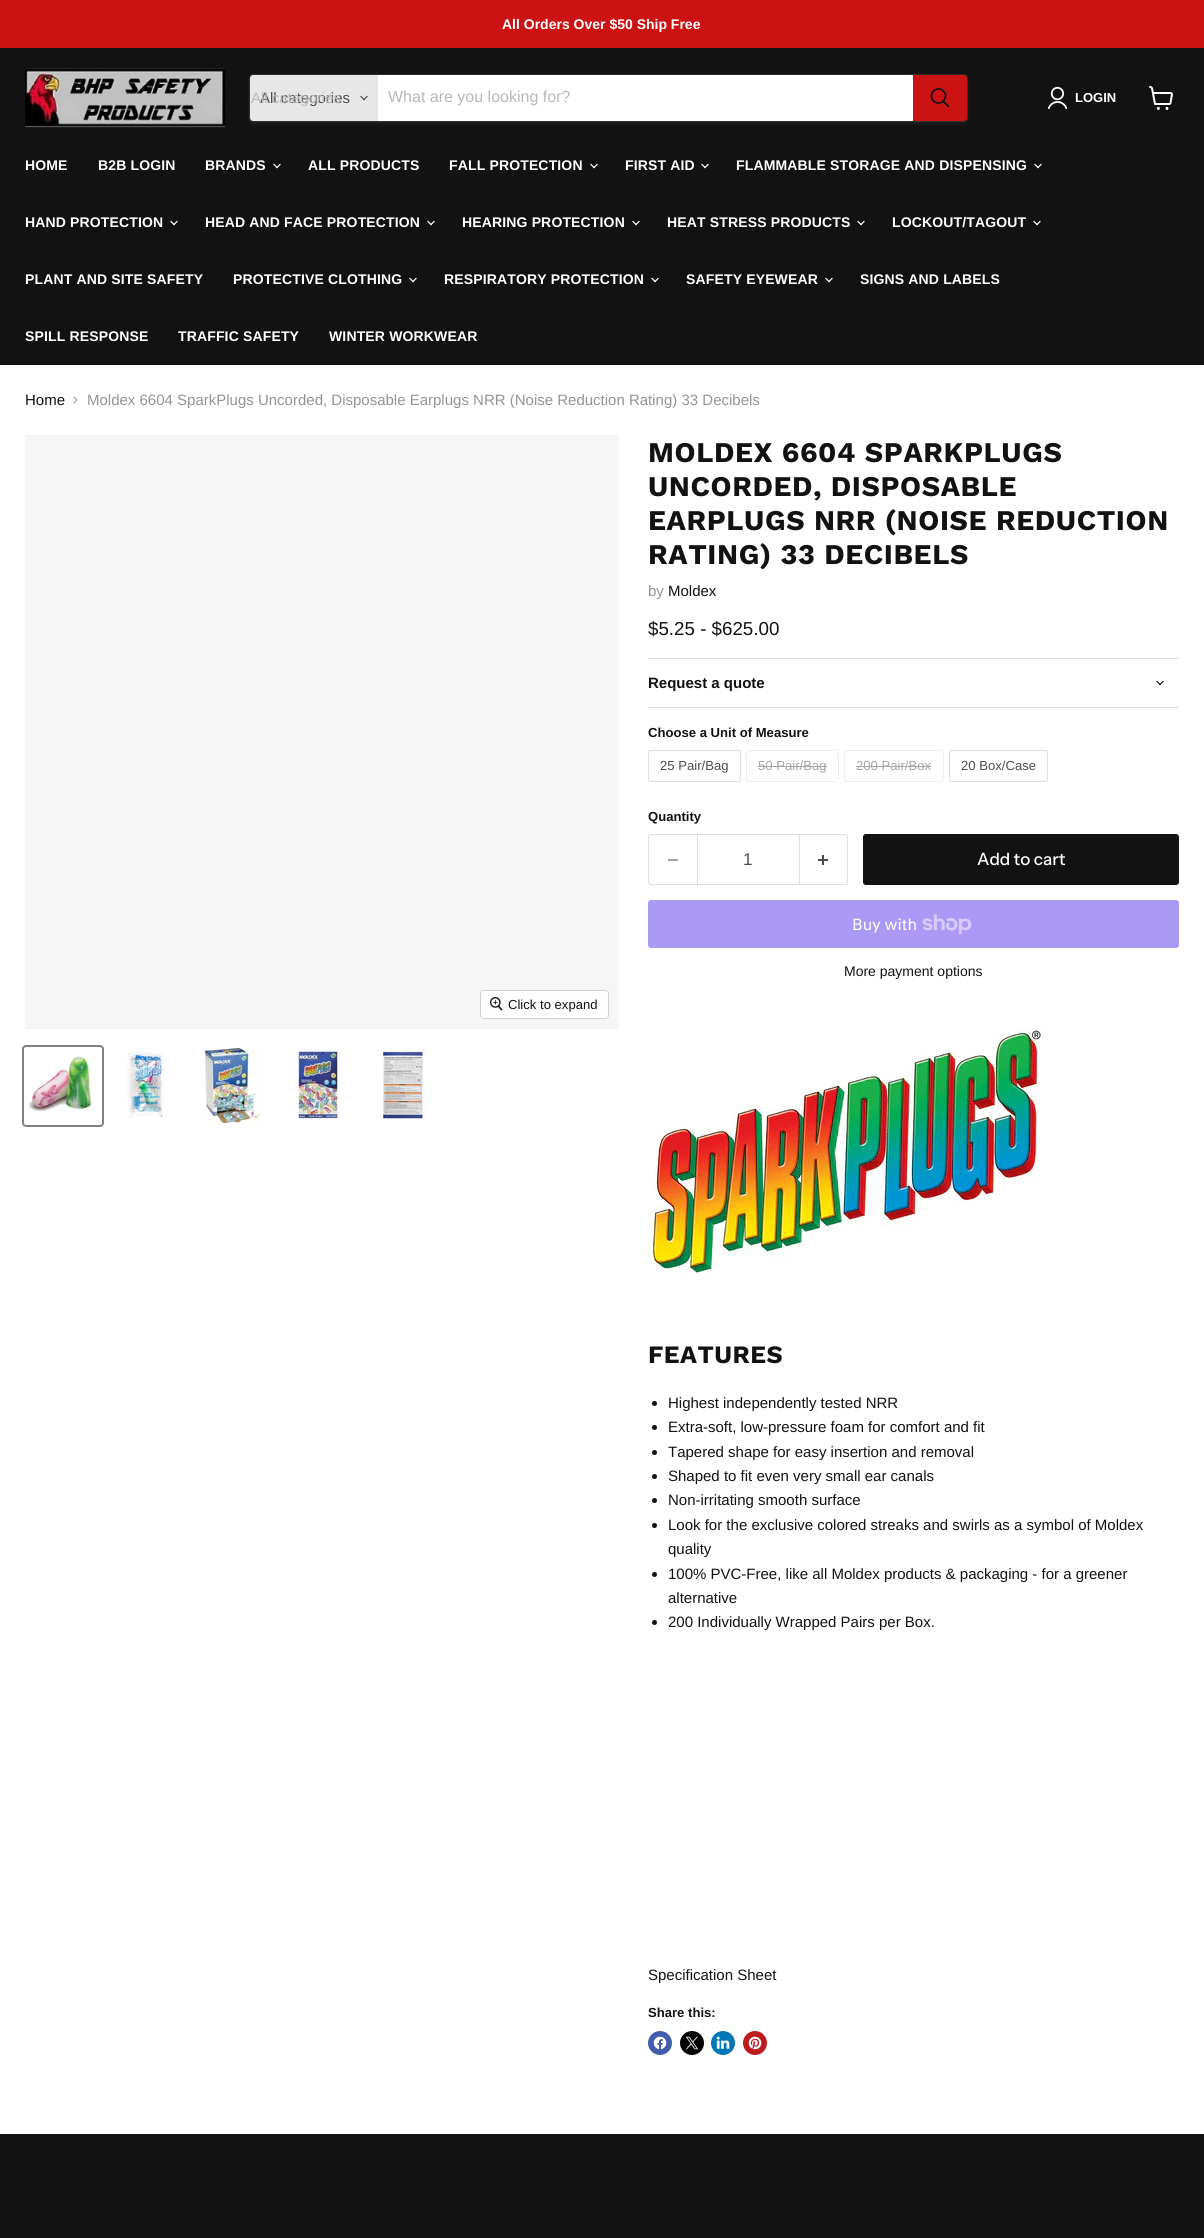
#include <cairo.h>
#include <math.h>
#include <stddef.h>


static void set_color(cairo_t *cr, unsigned color) {
    cairo_set_source_rgb(cr, (color >> 16) / 255.0, (color >> 8 & 255) / 255.0, (color & 255) / 255.0);
}

static void draw_text(cairo_t *cr, double x, double y, const char *s, const char *family, double size, int italic, int bold, unsigned color) {
    cairo_select_font_face(cr, family, italic ? CAIRO_FONT_SLANT_ITALIC : CAIRO_FONT_SLANT_NORMAL,
        bold ? CAIRO_FONT_WEIGHT_BOLD : CAIRO_FONT_WEIGHT_NORMAL);
    cairo_set_font_size(cr, size);
    set_color(cr, color);
    cairo_move_to(cr, x, y);
    cairo_show_text(cr, s);
}

static void draw_spaced(cairo_t *cr, double x, double y, const char *s, double letter, double word) {
    cairo_move_to(cr, x, y);
    while (*s) {
        char ch[5] = {0};
        int n = 0;
        do ch[n++] = *s++; while ((*s & 0xC0) == 0x80);
        cairo_show_text(cr, ch);
        cairo_rel_move_to(cr, letter + word * (*ch == ' '), 0);
    }
}

static void fill_rect(cairo_t *cr, double x, double y, double w, double h, unsigned color) {
    set_color(cr, color);
    cairo_rectangle(cr, x, y, w, h);
    cairo_fill(cr);
}

static void rounded_rect(cairo_t *cr, double x, double y, double w, double h, double r) {
    cairo_new_sub_path(cr);
    cairo_arc(cr, x + w - r, y + h - r, r, 0, M_PI / 2);
    cairo_arc(cr, x + r, y + h - r, r, M_PI / 2, M_PI);
    cairo_arc(cr, x + r, y + r, r, M_PI, 1.5 * M_PI);
    cairo_arc(cr, x + w - r, y + r, r, 1.5 * M_PI, 2 * M_PI);
    cairo_close_path(cr);
}

static void draw_shadow(cairo_t *cr, double x, double y, double w, double h, double r, double blur, double alpha) {
    cairo_push_group_with_content(cr, CAIRO_CONTENT_ALPHA);
    cairo_set_operator(cr, CAIRO_OPERATOR_SOURCE);
    for (int i = 15; i >= -15 && fmin(w, h) + blur * i / 3 > 0; i -= 2) {
        double e = blur * i / 6;
        cairo_set_source_rgba(cr, 0, 0, 0, alpha * erfc((i - 1) / 8.5) / 2);
        rounded_rect(cr, x - e, y - e, w + 2 * e, h + 2 * e, fmax(0, fmin(r + e + blur * .6, fmin(w, h) / 2 + e)));
        cairo_fill(cr);
    }
    cairo_pattern_t *soft = cairo_pop_group(cr);
    cairo_mask(cr, soft);
    cairo_pattern_destroy(soft);
}

static void draw_image(cairo_t *cr, const char *path, double x, double y, double w, double h) {
    cairo_surface_t *image = cairo_image_surface_create_from_png(path);
    cairo_save(cr);
    cairo_set_source_surface(cr, image, x, y);
    cairo_rectangle(cr, x, y, w, h);
    cairo_fill(cr);
    cairo_restore(cr);
    cairo_surface_destroy(image);
}

int main(void) {
    cairo_surface_t *surface = cairo_image_surface_create(CAIRO_FORMAT_RGB24, 1204, 2238);
    cairo_t *cr = cairo_create(surface);
    cairo_font_options_t *options = cairo_font_options_create();
    cairo_font_options_set_hint_metrics(options, CAIRO_HINT_METRICS_OFF);
    cairo_font_options_set_hint_style(options, CAIRO_HINT_STYLE_NONE);
    cairo_set_font_options(cr, options);
    cairo_set_miter_limit(cr, 4);
    set_color(cr, 0xFFFFFF);
    cairo_paint(cr);
    fill_rect(cr, 0, 0, 1204, 48, 0xCC1313);
    draw_text(cr, 502, 29, "All Orders Over $50 Ship Free", "Liberation Sans", 14, 0, 1, 0xFFFFFF);
    fill_rect(cr, 0, 48, 1204, 317, 0x121212);
    draw_image(cr, "assets/img1.png", 25, 68, 200, 60);
    set_color(cr, 0x808080);
    draw_shadow(cr, 249, 76, 719, 48, 4, 1.5, 0.11);
    rounded_rect(cr, 249.5, 74.5, 718, 47, 3.5);
    cairo_set_source_rgba(cr, 0.502, 0.502, 0.502, 0.2);
    cairo_set_line_width(cr, 1);
    cairo_stroke(cr);
    set_color(cr, 0xE7E7E7);
    cairo_new_path(cr);
    cairo_move_to(cr, 253, 75);
    cairo_line_to(cr, 378, 75);
    cairo_line_to(cr, 378, 121);
    cairo_line_to(cr, 253, 121);
    cairo_curve_to(cr, 251.5, 121, 250, 119.5, 250, 118);
    cairo_line_to(cr, 250, 78);
    cairo_curve_to(cr, 250, 76.5, 251.5, 75, 253, 75);
    cairo_close_path(cr);
    cairo_fill(cr);
    draw_text(cr, 260, 103, "All categories", "Liberation Sans", 15, 0, 0, 0x4D4D4D);
    draw_text(cr, 251, 103, "All categories", "Liberation Sans", 15, 0, 0, 0xB8B8B8);
    draw_image(cr, "assets/img2.png", 360, 95, 8, 6);
    fill_rect(cr, 378, 75, 535, 46, 0xFFFFFF);
    draw_text(cr, 388, 102, "What are you looking for?", "Liberation Sans", 16, 0, 0, 0xB8B8B8);
    set_color(cr, 0xCC1313);
    cairo_new_path(cr);
    cairo_move_to(cr, 913.5, 75.5);
    cairo_line_to(cr, 964, 75.5);
    cairo_curve_to(cr, 965.5, 75.5, 966.5, 76.5, 966.5, 78);
    cairo_line_to(cr, 966.5, 118);
    cairo_curve_to(cr, 966.5, 119.5, 965.5, 120.5, 964, 120.5);
    cairo_line_to(cr, 913.5, 120.5);
    cairo_close_path(cr);
    cairo_fill_preserve(cr);
    cairo_stroke(cr);
    cairo_new_path(cr);
    cairo_move_to(cr, 948.5, 106.5);
    cairo_line_to(cr, 943.5, 101.5);
    set_color(cr, 0x121212);
    cairo_set_line_width(cr, 1.7);
    cairo_set_line_cap(cr, CAIRO_LINE_CAP_ROUND);
    cairo_stroke(cr);
    cairo_arc(cr, 938.5, 96, 7, 0, 2 * M_PI);
    cairo_set_line_cap(cr, CAIRO_LINE_CAP_BUTT);
    cairo_stroke(cr);
    draw_image(cr, "assets/img3.png", 1047, 86, 20, 24);
    draw_text(cr, 1075, 102, "LOGIN", "Liberation Sans", 13, 0, 1, 0xFFFFFF);
    draw_image(cr, "assets/img4.png", 1149, 86, 24, 24);
    cairo_set_font_size(cr, 14);
    draw_spaced(cr, 25, 170, "HOME", 0.15, 0);
    draw_spaced(cr, 98, 170, "B2B LOGIN", 0.15, 0);
    draw_spaced(cr, 205, 170, "BRANDS", 0.15, 0);
    draw_image(cr, "assets/img5.png", 273, 163, 8, 6);
    draw_spaced(cr, 308, 170, "ALL PRODUCTS", 0.15, 0);
    draw_spaced(cr, 449, 170, "FALL PROTECTION", 0.15, 0);
    draw_image(cr, "assets/img5.png", 590, 163, 8, 6);
    draw_spaced(cr, 625, 170, "FIRST AID", 0.15, 0);
    draw_image(cr, "assets/img5.png", 701, 163, 8, 6);
    draw_spaced(cr, 736, 170, "FLAMMABLE STORAGE AND DISPENSING", 0.15, 0);
    draw_image(cr, "assets/img5.png", 1034, 163, 8, 6);
    draw_spaced(cr, 25, 227, "HAND PROTECTION", 0.15, 0);
    draw_image(cr, "assets/img5.png", 170, 220, 8, 6);
    draw_spaced(cr, 205, 227, "HEAD AND FACE PROTECTION", 0.15, 0);
    draw_image(cr, "assets/img5.png", 427, 220, 8, 6);
    draw_spaced(cr, 462, 227, "HEARING PROTECTION", 0.15, 0);
    draw_image(cr, "assets/img5.png", 632, 220, 8, 6);
    draw_spaced(cr, 667, 227, "HEAT STRESS PRODUCTS", 0.15, 0);
    draw_image(cr, "assets/img5.png", 857, 220, 8, 6);
    draw_spaced(cr, 892, 227, "LOCKOUT/TAGOUT", 0.15, 0);
    draw_image(cr, "assets/img5.png", 1033, 220, 8, 6);
    draw_spaced(cr, 25, 284, "PLANT AND SITE SAFETY", 0.15, 0);
    draw_spaced(cr, 233, 284, "PROTECTIVE CLOTHING", 0.15, 0);
    draw_image(cr, "assets/img5.png", 409, 277, 8, 6);
    draw_spaced(cr, 444, 284, "RESPIRATORY PROTECTION", 0.15, 0);
    draw_image(cr, "assets/img5.png", 651, 277, 8, 6);
    draw_spaced(cr, 686, 284, "SAFETY EYEWEAR", 0.15, 0);
    draw_image(cr, "assets/img5.png", 825, 277, 8, 6);
    draw_spaced(cr, 860, 284, "SIGNS AND LABELS", 0.15, 0);
    draw_spaced(cr, 25, 341, "SPILL RESPONSE", 0.15, 0);
    draw_spaced(cr, 178, 341, "TRAFFIC SAFETY", 0.15, 0);
    draw_spaced(cr, 329, 341, "WINTER WORKWEAR", 0.15, 0);
    draw_text(cr, 25, 405, "Home", "Liberation Sans", 15, 0, 0, 0x121212);
    draw_image(cr, "assets/img6.png", 73, 396, 5, 8);
    draw_text(cr, 87, 405, "Moldex 6604 SparkPlugs Uncorded, Disposable Earplugs NRR (Noise Reduction Rating) 33 Decibels", "Liberation Sans", 15, 0, 0, 0x949494);
    fill_rect(cr, 25, 435, 594, 594, 0xF6F6F6);
    rounded_rect(cr, 480.5, 990.5, 128, 28, 3.5);
    set_color(cr, 0xD1D1D1);
    cairo_set_line_width(cr, 1);
    cairo_stroke(cr);
    cairo_set_source_rgba(cr, 1, 1, 1, 0.9);
    rounded_rect(cr, 481, 991, 127, 27, 3);
    cairo_fill(cr);
    draw_image(cr, "assets/img7.png", 490, 997, 13, 14);
    draw_text(cr, 508, 1009, "Click to expand", "Liberation Sans", 13.1, 0, 0, 0x121212);
    rounded_rect(cr, 23, 1046, 80, 80, 3);
    set_color(cr, 0x818181);
    cairo_set_line_width(cr, 2);
    cairo_stroke(cr);
    draw_image(cr, "assets/img8.png", 29, 1056, 67, 56);
    draw_image(cr, "assets/img9.png", 127, 1048, 39, 70);
    draw_image(cr, "assets/img10.png", 203, 1048, 60, 75);
    draw_image(cr, "assets/img11.png", 296, 1048, 48, 72);
    draw_image(cr, "assets/img12.png", 381, 1049, 48, 71);
    cairo_select_font_face(cr, "Work Sans", CAIRO_FONT_SLANT_NORMAL, CAIRO_FONT_WEIGHT_BOLD);
    cairo_set_font_size(cr, 28.5);
    set_color(cr, 0x121212);
    draw_spaced(cr, 648, 462, "MOLDEX 6604 SPARKPLUGS", 0.6, 0);
    draw_spaced(cr, 648, 496, "UNCORDED, DISPOSABLE", 0.6, 0);
    draw_spaced(cr, 648, 530, "EARPLUGS NRR (NOISE REDUCTION", 0.6, 0);
    draw_spaced(cr, 648, 564, "RATING) 33 DECIBELS", 0.6, 0);
    draw_text(cr, 648, 596, "by", "Liberation Sans", 15, 0, 0, 0x949494);
    draw_text(cr, 668, 596, "Moldex", "Liberation Sans", 15, 0, 0, 0x121212);
    draw_text(cr, 648, 635, "$5.25 - $625.00", "Liberation Sans", 18.75, 0, 0, 0x121212);
    fill_rect(cr, 648, 658, 531, 1, 0xDDDDDD);
    fill_rect(cr, 648, 707, 531, 1, 0xDDDDDD);
    draw_text(cr, 648, 688, "Request a quote", "Liberation Sans", 15, 0, 1, 0x121212);
    draw_image(cr, "assets/img13.png", 1156, 680, 8, 6);
    draw_text(cr, 648, 737, "Choose a Unit of Measure", "Liberation Sans", 13.1, 0, 1, 0x121212);
    rounded_rect(cr, 648.5, 750.5, 92, 31, 2.5);
    set_color(cr, 0xDDDDDD);
    cairo_set_line_width(cr, 1);
    cairo_stroke(cr);
    draw_text(cr, 660, 770, "25 Pair/Bag", "Liberation Sans", 13.1, 0, 0, 0x4D4D4D);
    rounded_rect(cr, 746.5, 750.5, 92, 31, 2.5);
    set_color(cr, 0xEEEEEE);
    cairo_stroke(cr);
    draw_text(cr, 758, 770, "50 Pair/Bag", "Liberation Sans", 13.1, 0, 0, 0xA6A6A6);
    fill_rect(cr, 758, 766, 69, 1, 0xA6A6A6);
    rounded_rect(cr, 844.5, 750.5, 99, 31, 2.5);
    set_color(cr, 0xEEEEEE);
    cairo_stroke(cr);
    draw_text(cr, 856, 770, "200 Pair/Box", "Liberation Sans", 13.1, 0, 0, 0xA6A6A6);
    fill_rect(cr, 856, 766, 75, 1, 0xA6A6A6);
    rounded_rect(cr, 949.5, 750.5, 98, 31, 2.5);
    set_color(cr, 0xDDDDDD);
    cairo_stroke(cr);
    draw_text(cr, 961, 770, "20 Box/Case", "Liberation Sans", 13.1, 0, 0, 0x4D4D4D);
    draw_text(cr, 648, 821, "Quantity", "Liberation Sans", 13.1, 0, 1, 0x121212);
    set_color(cr, 0xDDDDDD);
    cairo_set_fill_rule(cr, CAIRO_FILL_RULE_EVEN_ODD);
    cairo_new_path(cr);
    cairo_move_to(cr, 651, 834);
    cairo_line_to(cr, 697, 834);
    cairo_line_to(cr, 697, 885);
    cairo_line_to(cr, 651, 885);
    cairo_curve_to(cr, 649, 885, 648, 884, 648, 882);
    cairo_line_to(cr, 648, 837);
    cairo_curve_to(cr, 648, 835, 649, 834, 651, 834);
    cairo_close_path(cr);
    cairo_move_to(cr, 651, 835);
    cairo_line_to(cr, 697, 835);
    cairo_line_to(cr, 697, 884);
    cairo_line_to(cr, 659, 884);
    cairo_curve_to(cr, 655, 884, 649, 885, 649, 882);
    cairo_line_to(cr, 649, 836);
    cairo_close_path(cr);
    cairo_fill(cr);
    fill_rect(cr, 668, 859, 10, 2, 0xA6A6A6);
    cairo_rectangle(cr, 697.5, 834.5, 102, 50);
    set_color(cr, 0xDDDDDD);
    cairo_stroke(cr);
    draw_text(cr, 743, 865, "1", "Liberation Sans", 17, 0, 0, 0x4D4D4D);
    set_color(cr, 0xDDDDDD);
    cairo_new_path(cr);
    cairo_move_to(cr, 800, 834);
    cairo_line_to(cr, 845, 834);
    cairo_curve_to(cr, 847, 834, 848, 835, 848, 837);
    cairo_line_to(cr, 848, 882);
    cairo_curve_to(cr, 848, 884, 847, 885, 845, 885);
    cairo_line_to(cr, 800, 885);
    cairo_close_path(cr);
    cairo_move_to(cr, 800, 835);
    cairo_line_to(cr, 845, 835);
    cairo_curve_to(cr, 846, 835, 847, 836, 847, 837);
    cairo_line_to(cr, 847, 882);
    cairo_curve_to(cr, 847, 883, 846, 884, 845, 884);
    cairo_line_to(cr, 800, 884);
    cairo_close_path(cr);
    cairo_fill(cr);
    draw_image(cr, "assets/img14.png", 818, 855, 10, 10);
    set_color(cr, 0x121212);
    rounded_rect(cr, 863.5, 834.5, 315, 50, 2.5);
    cairo_fill_preserve(cr);
    cairo_stroke(cr);
    draw_text(cr, 977, 865, "Add to cart", "Instrument Sans Medium", 17, 0, 0, 0xFFFFFF);
    set_color(cr, 0xAA99F5);
    rounded_rect(cr, 648, 900, 531, 48, 3);
    cairo_fill(cr);
    draw_text(cr, 852, 930, "Buy with", "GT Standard", 16, 0, 0, 0xFFFFFF);
    draw_image(cr, "assets/img15.png", 922, 914, 50, 20);
    draw_text(cr, 844, 976, "More payment options", "Liberation Sans", 14, 0, 0, 0x121212);
    draw_image(cr, "assets/img16.png", 648, 1028, 396, 250);
    cairo_select_font_face(cr, "Work Sans", CAIRO_FONT_SLANT_NORMAL, CAIRO_FONT_WEIGHT_BOLD);
    cairo_set_font_size(cr, 25);
    draw_spaced(cr, 648, 1363, "FEATURES", 0.5, 0);
    cairo_new_path(cr);
    cairo_arc(cr, 654.5, 1403.5, 2.5, 0, 2 * M_PI);
    cairo_fill(cr);
    draw_text(cr, 668, 1408, "Highest independently tested NRR", "Liberation Sans", 15, 0, 0, 0x121212);
    cairo_new_path(cr);
    cairo_arc(cr, 654.5, 1427.5, 2.5, 0, 2 * M_PI);
    cairo_fill(cr);
    draw_text(cr, 668, 1432, "Extra-soft, low-pressure foam for comfort and fit", "Liberation Sans", 15, 0, 0, 0x121212);
    cairo_new_path(cr);
    cairo_arc(cr, 654.5, 1452.5, 2.5, 0, 2 * M_PI);
    cairo_fill(cr);
    draw_text(cr, 668, 1457, "Tapered shape for easy insertion and removal", "Liberation Sans", 15, 0, 0, 0x121212);
    cairo_new_path(cr);
    cairo_arc(cr, 654.5, 1476.5, 2.5, 0, 2 * M_PI);
    cairo_fill(cr);
    draw_text(cr, 668, 1481, "Shaped to fit even very small ear canals", "Liberation Sans", 15, 0, 0, 0x121212);
    cairo_new_path(cr);
    cairo_arc(cr, 654.5, 1500.5, 2.5, 0, 2 * M_PI);
    cairo_fill(cr);
    draw_text(cr, 668, 1505, "Non-irritating smooth surface", "Liberation Sans", 15, 0, 0, 0x121212);
    cairo_new_path(cr);
    cairo_arc(cr, 654.5, 1525.5, 2.5, 0, 2 * M_PI);
    cairo_fill(cr);
    draw_text(cr, 668, 1530, "Look for the exclusive colored streaks and swirls as a symbol of Moldex", "Liberation Sans", 15, 0, 0, 0x121212);
    draw_text(cr, 668, 1554, "quality", "Liberation Sans", 15, 0, 0, 0x121212);
    cairo_new_path(cr);
    cairo_arc(cr, 654.5, 1574.5, 2.5, 0, 2 * M_PI);
    cairo_fill(cr);
    draw_text(cr, 668, 1579, "100% PVC-Free, like all Moldex products & packaging - for a greener", "Liberation Sans", 15, 0, 0, 0x121212);
    draw_text(cr, 668, 1603, "alternative", "Liberation Sans", 15, 0, 0, 0x121212);
    cairo_new_path(cr);
    cairo_arc(cr, 654.5, 1622.5, 2.5, 0, 2 * M_PI);
    cairo_fill(cr);
    draw_text(cr, 668, 1627, "200 Individually Wrapped Pairs per Box.", "Liberation Sans", 15, 0, 0, 0x121212);
    draw_text(cr, 648, 1980, "Specification Sheet", "Liberation Sans", 15, 0, 0, 0x121212);
    draw_text(cr, 648, 2017, "Share this:", "Liberation Sans", 13.1, 0, 1, 0x121212);
    set_color(cr, 0x425DAB);
    cairo_new_path(cr);
    cairo_arc(cr, 660, 2043, 12, 0, 2 * M_PI);
    cairo_fill(cr);
    draw_image(cr, "assets/img17.png", 653, 2036, 14, 14);
    set_color(cr, 0x000000);
    cairo_arc(cr, 692, 2043, 12, 0, 2 * M_PI);
    cairo_fill(cr);
    draw_image(cr, "assets/img18.png", 685, 2036, 14, 14);
    set_color(cr, 0x0077B5);
    cairo_arc(cr, 723, 2043, 12, 0, 2 * M_PI);
    cairo_fill(cr);
    draw_image(cr, "assets/img19.png", 716, 2036, 14, 13);
    set_color(cr, 0xBD1C1C);
    cairo_arc(cr, 755, 2043, 12, 0, 2 * M_PI);
    cairo_fill(cr);
    draw_image(cr, "assets/img20.png", 748, 2036, 14, 14);
    fill_rect(cr, 0, 2134, 1204, 104, 0x121212);
    cairo_surface_write_to_png(surface, "output.png");
    cairo_font_options_destroy(options);
    cairo_destroy(cr);
    cairo_surface_destroy(surface);
    return 0;
}
